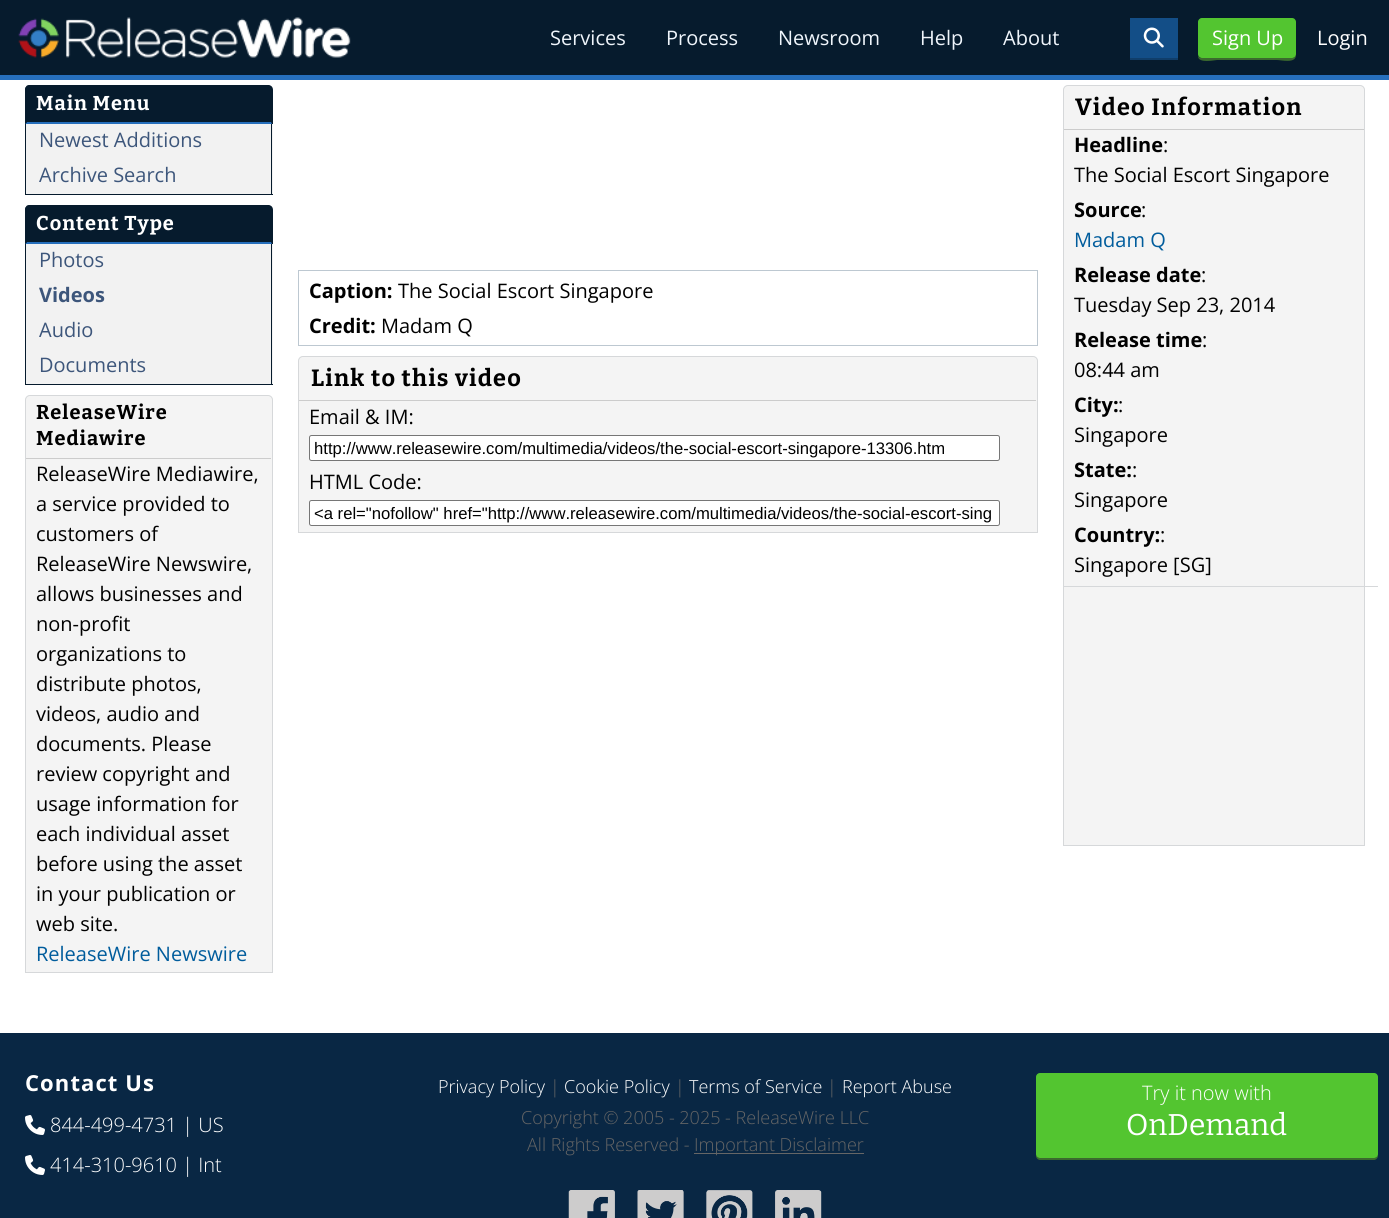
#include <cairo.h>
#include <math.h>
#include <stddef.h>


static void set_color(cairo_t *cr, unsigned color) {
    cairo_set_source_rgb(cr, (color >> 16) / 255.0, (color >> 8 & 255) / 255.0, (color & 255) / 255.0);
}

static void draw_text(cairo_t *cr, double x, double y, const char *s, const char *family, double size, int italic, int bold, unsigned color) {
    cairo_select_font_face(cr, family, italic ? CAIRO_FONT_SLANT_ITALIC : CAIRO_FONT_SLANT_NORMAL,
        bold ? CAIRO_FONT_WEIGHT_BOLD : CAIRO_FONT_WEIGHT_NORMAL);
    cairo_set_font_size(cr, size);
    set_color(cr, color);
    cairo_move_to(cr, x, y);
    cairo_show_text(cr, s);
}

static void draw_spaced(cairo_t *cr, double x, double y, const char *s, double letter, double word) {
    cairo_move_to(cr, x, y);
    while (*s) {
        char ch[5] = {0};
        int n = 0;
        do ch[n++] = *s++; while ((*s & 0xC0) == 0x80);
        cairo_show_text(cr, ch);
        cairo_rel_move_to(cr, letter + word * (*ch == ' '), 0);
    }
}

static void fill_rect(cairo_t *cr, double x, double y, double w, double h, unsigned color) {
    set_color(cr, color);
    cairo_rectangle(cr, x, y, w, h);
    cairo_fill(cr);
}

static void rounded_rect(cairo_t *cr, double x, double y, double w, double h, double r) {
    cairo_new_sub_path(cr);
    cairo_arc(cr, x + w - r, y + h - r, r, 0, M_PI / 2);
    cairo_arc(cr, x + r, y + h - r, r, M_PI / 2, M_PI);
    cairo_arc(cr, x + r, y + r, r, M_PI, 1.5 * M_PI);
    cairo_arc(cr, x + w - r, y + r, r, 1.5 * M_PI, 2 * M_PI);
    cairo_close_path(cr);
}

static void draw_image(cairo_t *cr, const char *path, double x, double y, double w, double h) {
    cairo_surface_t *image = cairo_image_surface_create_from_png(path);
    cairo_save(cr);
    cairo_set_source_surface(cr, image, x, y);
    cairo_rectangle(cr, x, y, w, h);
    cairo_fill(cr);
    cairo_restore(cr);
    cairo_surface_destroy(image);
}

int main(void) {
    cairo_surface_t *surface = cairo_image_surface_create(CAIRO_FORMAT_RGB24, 1389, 1218);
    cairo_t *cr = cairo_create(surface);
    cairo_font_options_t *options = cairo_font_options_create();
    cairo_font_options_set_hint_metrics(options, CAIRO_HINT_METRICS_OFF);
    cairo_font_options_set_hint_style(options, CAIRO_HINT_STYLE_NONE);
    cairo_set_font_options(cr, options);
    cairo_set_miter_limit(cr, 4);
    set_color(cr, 0xFFFFFF);
    cairo_paint(cr);
    fill_rect(cr, 0, 0, 1389, 75, 0x061B2D);
    fill_rect(cr, 0, 75, 1389, 5, 0x266FBC);
    draw_image(cr, "assets/img1.png", 18, 17, 333, 41);
    draw_text(cr, 550, 45, "Services", "Open Sans", 20, 0, 0, 0xEFF5FB);
    draw_text(cr, 666, 45, "Process", "Open Sans", 20, 0, 0, 0xEFF5FB);
    draw_text(cr, 778, 45, "Newsroom", "Open Sans", 20, 0, 0, 0xEFF5FB);
    draw_text(cr, 920, 45, "Help", "Open Sans", 20, 0, 0, 0xEFF5FB);
    draw_text(cr, 1003, 45, "About", "Open Sans", 20, 0, 0, 0xEFF5FB);
    set_color(cr, 0x103E6A);
    cairo_new_path(cr);
    cairo_move_to(cr, 1130, 58);
    cairo_line_to(cr, 1130, 60);
    cairo_line_to(cr, 1178, 60);
    cairo_line_to(cr, 1178, 20);
    cairo_line_to(cr, 1178, 58);
    cairo_close_path(cr);
    cairo_fill(cr);
    fill_rect(cr, 1130, 18, 48, 40, 0x134E87);
    draw_image(cr, "assets/img2.png", 1143, 27, 21, 21);
    set_color(cr, 0x3B6A2E);
    cairo_new_path(cr);
    cairo_move_to(cr, 1198, 56);
    cairo_curve_to(cr, 1198, 64, 1215, 60, 1217, 60);
    cairo_line_to(cr, 1277, 60);
    cairo_curve_to(cr, 1281, 60, 1296, 64, 1296, 55);
    cairo_curve_to(cr, 1295, 57, 1294, 58, 1292, 58);
    cairo_line_to(cr, 1201, 58);
    cairo_curve_to(cr, 1200, 58, 1199, 57, 1198, 56);
    cairo_close_path(cr);
    cairo_fill(cr);
    set_color(cr, 0x53C530);
    rounded_rect(cr, 1198, 18, 98, 40, 4);
    cairo_fill(cr);
    draw_text(cr, 1212, 45, "Sign Up", "Open Sans", 20, 0, 0, 0xFFFFFF);
    draw_text(cr, 1317, 45, "Login", "Open Sans", 20, 0, 0, 0xFFFFFF);
    set_color(cr, 0x061B2D);
    cairo_new_path(cr);
    cairo_move_to(cr, 30, 85);
    cairo_line_to(cr, 268, 85);
    cairo_curve_to(cr, 271, 85, 273, 87, 273, 90);
    cairo_line_to(cr, 273, 124);
    cairo_line_to(cr, 25, 124);
    cairo_line_to(cr, 25, 90);
    cairo_curve_to(cr, 25, 87, 27, 85, 30, 85);
    cairo_close_path(cr);
    cairo_fill(cr);
    cairo_new_path(cr);
    cairo_move_to(cr, 30, 85);
    cairo_curve_to(cr, 28, 85, 27, 86, 26, 86);
    cairo_line_to(cr, 27, 87);
    cairo_line_to(cr, 30, 86);
    cairo_line_to(cr, 269, 86);
    cairo_line_to(cr, 270, 87);
    cairo_line_to(cr, 271, 87);
    cairo_curve_to(cr, 270, 86, 269, 85, 268, 85);
    cairo_close_path(cr);
    cairo_fill(cr);
    cairo_new_path(cr);
    cairo_move_to(cr, 271, 86.5);
    cairo_curve_to(cr, 271.5, 87.5, 272, 88.5, 272, 90);
    cairo_line_to(cr, 272, 123);
    cairo_line_to(cr, 271, 122);
    cairo_line_to(cr, 271, 90);
    cairo_curve_to(cr, 271, 89, 271, 88, 270, 87);
    cairo_close_path(cr);
    cairo_fill(cr);
    set_color(cr, 0x266FBC);
    cairo_new_path(cr);
    cairo_move_to(cr, 272, 124);
    cairo_line_to(cr, 25, 124);
    cairo_line_to(cr, 27, 122);
    cairo_line_to(cr, 271, 122);
    cairo_close_path(cr);
    cairo_fill(cr);
    set_color(cr, 0x061B2D);
    cairo_new_path(cr);
    cairo_move_to(cr, 25, 124);
    cairo_line_to(cr, 27, 122);
    cairo_line_to(cr, 26, 122);
    cairo_line_to(cr, 26, 90);
    cairo_curve_to(cr, 26, 89, 26.5, 88, 27, 87);
    cairo_line_to(cr, 26.5, 86.5);
    cairo_curve_to(cr, 25.5, 87, 25, 88.5, 25, 90);
    cairo_close_path(cr);
    cairo_fill(cr);
    cairo_select_font_face(cr, "Bitter", CAIRO_FONT_SLANT_NORMAL, CAIRO_FONT_WEIGHT_BOLD);
    set_color(cr, 0xFFFFFF);
    draw_spaced(cr, 36, 110, "Main Menu", 1, 0);
    fill_rect(cr, 26, 124, 247, 70, 0xF2F2F2);
    fill_rect(cr, 271, 124, 1, 71, 0x061B2D);
    fill_rect(cr, 25, 194, 248, 1, 0x061B2D);
    fill_rect(cr, 25, 124, 1, 71, 0x061B2D);
    draw_text(cr, 39, 147, "Newest Additions", "Open Sans", 20, 0, 0, 0x3D567B);
    draw_text(cr, 39, 182, "Archive Search", "Open Sans", 20, 0, 0, 0x3D567B);
    set_color(cr, 0x061B2D);
    cairo_new_path(cr);
    cairo_move_to(cr, 30, 205);
    cairo_line_to(cr, 268, 205);
    cairo_curve_to(cr, 271, 205, 273, 207, 273, 210);
    cairo_line_to(cr, 273, 244);
    cairo_line_to(cr, 25, 244);
    cairo_line_to(cr, 25, 210);
    cairo_curve_to(cr, 25, 207, 27, 205, 30, 205);
    cairo_close_path(cr);
    cairo_fill(cr);
    cairo_new_path(cr);
    cairo_move_to(cr, 30, 205);
    cairo_curve_to(cr, 28, 205, 27, 206, 26, 206);
    cairo_line_to(cr, 27, 207);
    cairo_line_to(cr, 30, 206);
    cairo_line_to(cr, 269, 206);
    cairo_line_to(cr, 270, 207);
    cairo_line_to(cr, 271, 207);
    cairo_curve_to(cr, 270, 206, 269, 205, 268, 205);
    cairo_close_path(cr);
    cairo_fill(cr);
    cairo_new_path(cr);
    cairo_move_to(cr, 271, 206.5);
    cairo_curve_to(cr, 271.5, 207.5, 272, 208.5, 272, 210);
    cairo_line_to(cr, 272, 243);
    cairo_line_to(cr, 271, 242);
    cairo_line_to(cr, 271, 210);
    cairo_curve_to(cr, 271, 209, 271, 208, 270, 207);
    cairo_close_path(cr);
    cairo_fill(cr);
    set_color(cr, 0x266FBC);
    cairo_new_path(cr);
    cairo_move_to(cr, 272, 244);
    cairo_line_to(cr, 25, 244);
    cairo_line_to(cr, 27, 242);
    cairo_line_to(cr, 271, 242);
    cairo_close_path(cr);
    cairo_fill(cr);
    set_color(cr, 0x061B2D);
    cairo_new_path(cr);
    cairo_move_to(cr, 25, 244);
    cairo_line_to(cr, 27, 242);
    cairo_line_to(cr, 26, 242);
    cairo_line_to(cr, 26, 210);
    cairo_curve_to(cr, 26, 209, 26.5, 208, 27, 207);
    cairo_line_to(cr, 26.5, 206.5);
    cairo_curve_to(cr, 25.5, 207, 25, 208.5, 25, 210);
    cairo_close_path(cr);
    cairo_fill(cr);
    cairo_select_font_face(cr, "Bitter", CAIRO_FONT_SLANT_NORMAL, CAIRO_FONT_WEIGHT_BOLD);
    set_color(cr, 0xFFFFFF);
    draw_spaced(cr, 36, 230, "Content Type", 1, 0);
    fill_rect(cr, 26, 244, 247, 140, 0xF2F2F2);
    fill_rect(cr, 271, 244, 1, 141, 0x061B2D);
    fill_rect(cr, 25, 384, 248, 1, 0x061B2D);
    fill_rect(cr, 25, 244, 1, 141, 0x061B2D);
    draw_text(cr, 39, 267, "Photos", "Open Sans", 20, 0, 0, 0x3D567B);
    draw_text(cr, 39, 302, "Videos", "Open Sans", 20, 0, 1, 0x3D567B);
    draw_text(cr, 39, 337, "Audio", "Open Sans", 20, 0, 0, 0x3D567B);
    draw_text(cr, 39, 372, "Documents", "Open Sans", 20, 0, 0, 0x3D567B);
    set_color(cr, 0xF4F4F4);
    cairo_new_path(cr);
    cairo_move_to(cr, 30, 395.5);
    cairo_line_to(cr, 268, 395.5);
    cairo_curve_to(cr, 270.5, 395.5, 272.5, 397.5, 272.5, 400);
    cairo_line_to(cr, 272.5, 972.5);
    cairo_line_to(cr, 25.5, 972.5);
    cairo_line_to(cr, 25.5, 400);
    cairo_curve_to(cr, 25.5, 397.5, 27.5, 395.5, 30, 395.5);
    cairo_close_path(cr);
    cairo_fill_preserve(cr);
    set_color(cr, 0xD6D8DA);
    cairo_set_line_width(cr, 1);
    cairo_stroke(cr);
    fill_rect(cr, 26, 458, 245, 1, 0xCCCCCC);
    cairo_select_font_face(cr, "Bitter", CAIRO_FONT_SLANT_NORMAL, CAIRO_FONT_WEIGHT_BOLD);
    set_color(cr, 0x000000);
    draw_spaced(cr, 36, 419, "ReleaseWire", 1, 0);
    draw_spaced(cr, 36, 445, "Mediawire", 1, 0);
    draw_text(cr, 36, 481, "ReleaseWire Mediawire,", "Open Sans", 20, 0, 0, 0x000000);
    draw_text(cr, 36, 511, "a service provided to", "Open Sans", 20, 0, 0, 0x000000);
    draw_text(cr, 36, 541, "customers of", "Open Sans", 20, 0, 0, 0x000000);
    draw_text(cr, 36, 571, "ReleaseWire Newswire,", "Open Sans", 20, 0, 0, 0x000000);
    draw_text(cr, 36, 601, "allows businesses and", "Open Sans", 20, 0, 0, 0x000000);
    draw_text(cr, 36, 631, "non-profit", "Open Sans", 20, 0, 0, 0x000000);
    draw_text(cr, 36, 661, "organizations to", "Open Sans", 20, 0, 0, 0x000000);
    draw_text(cr, 36, 691, "distribute photos,", "Open Sans", 20, 0, 0, 0x000000);
    draw_text(cr, 36, 721, "videos, audio and", "Open Sans", 20, 0, 0, 0x000000);
    draw_text(cr, 36, 751, "documents. Please", "Open Sans", 20, 0, 0, 0x000000);
    draw_text(cr, 36, 781, "review copyright and", "Open Sans", 20, 0, 0, 0x000000);
    draw_text(cr, 36, 811, "usage information for", "Open Sans", 20, 0, 0, 0x000000);
    draw_text(cr, 36, 841, "each individual asset", "Open Sans", 20, 0, 0, 0x000000);
    draw_text(cr, 36, 871, "before using the asset", "Open Sans", 20, 0, 0, 0x000000);
    draw_text(cr, 36, 901, "in your publication or", "Open Sans", 20, 0, 0, 0x000000);
    draw_text(cr, 36, 931, "web site.", "Open Sans", 20, 0, 0, 0x000000);
    draw_text(cr, 36, 961, "ReleaseWire Newswire", "Open Sans", 20, 0, 0, 0x005C9C);
    cairo_rectangle(cr, 298.5, 270.5, 739, 75);
    set_color(cr, 0xBDC8D1);
    cairo_stroke(cr);
    draw_text(cr, 309, 298, "Caption:", "Open Sans", 20, 0, 1, 0x000000);
    draw_text(cr, 398, 298, "The Social Escort Singapore", "Open Sans", 20, 0, 0, 0x000000);
    draw_text(cr, 309, 333, "Credit:", "Open Sans", 20, 0, 1, 0x000000);
    draw_text(cr, 381, 333, "Madam Q", "Open Sans", 20, 0, 0, 0x000000);
    set_color(cr, 0xF4F4F4);
    cairo_new_path(cr);
    cairo_move_to(cr, 303, 356.5);
    cairo_line_to(cr, 1033, 356.5);
    cairo_curve_to(cr, 1035.5, 356.5, 1037.5, 358.5, 1037.5, 361);
    cairo_line_to(cr, 1037.5, 532.5);
    cairo_line_to(cr, 298.5, 532.5);
    cairo_line_to(cr, 298.5, 361);
    cairo_curve_to(cr, 298.5, 358.5, 300.5, 356.5, 303, 356.5);
    cairo_close_path(cr);
    cairo_fill_preserve(cr);
    set_color(cr, 0xD6D8DA);
    cairo_stroke(cr);
    fill_rect(cr, 299, 400, 737, 1, 0xCCCCCC);
    cairo_select_font_face(cr, "Bitter", CAIRO_FONT_SLANT_NORMAL, CAIRO_FONT_WEIGHT_BOLD);
    cairo_set_font_size(cr, 23.5);
    set_color(cr, 0x000000);
    draw_spaced(cr, 311, 386, "Link to this video", 1.2, 0);
    draw_text(cr, 309, 424, "Email & IM:", "Open Sans", 20, 0, 0, 0x000000);
    set_color(cr, 0xFFFFFF);
    rounded_rect(cr, 309.5, 435.5, 690, 25, 2);
    cairo_fill_preserve(cr);
    set_color(cr, 0x767676);
    cairo_stroke(cr);
    draw_text(cr, 314, 454, "http://www.releasewire.com/multimedia/videos/the-social-escort-singapore-13306.htm", "Liberation Sans", 16.65, 0, 0, 0x000000);
    draw_text(cr, 309, 489, "HTML Code:", "Open Sans", 20, 0, 0, 0x000000);
    set_color(cr, 0xFFFFFF);
    rounded_rect(cr, 309.5, 500.5, 690, 25, 2);
    cairo_fill_preserve(cr);
    set_color(cr, 0x767676);
    cairo_stroke(cr);
    draw_text(cr, 314, 519, "<a rel=\"nofollow\" href=\"http://www.releasewire.com/multimedia/videos/the-social-escort-sing", "Liberation Sans", 16.65, 0, 0, 0x000000);
    set_color(cr, 0xF4F4F4);
    cairo_new_path(cr);
    cairo_move_to(cr, 1068, 85.5);
    cairo_line_to(cr, 1360, 85.5);
    cairo_curve_to(cr, 1362.5, 85.5, 1364.5, 87.5, 1364.5, 90);
    cairo_line_to(cr, 1364.5, 845.5);
    cairo_line_to(cr, 1063.5, 845.5);
    cairo_line_to(cr, 1063.5, 90);
    cairo_curve_to(cr, 1063.5, 87.5, 1065.5, 85.5, 1068, 85.5);
    cairo_close_path(cr);
    cairo_fill_preserve(cr);
    set_color(cr, 0xD6D8DA);
    cairo_stroke(cr);
    fill_rect(cr, 1064, 129, 300, 1, 0xCCCCCC);
    cairo_select_font_face(cr, "Bitter", CAIRO_FONT_SLANT_NORMAL, CAIRO_FONT_WEIGHT_BOLD);
    cairo_set_font_size(cr, 23.5);
    set_color(cr, 0x000000);
    draw_spaced(cr, 1075, 115, "Video Information", 1.2, 0);
    draw_text(cr, 1074, 152, "Headline", "Open Sans", 20, 0, 1, 0x000000);
    draw_text(cr, 1163, 152, ":", "Open Sans", 20, 0, 0, 0x000000);
    draw_text(cr, 1074, 182, "The Social Escort Singapore", "Open Sans", 20, 0, 0, 0x000000);
    draw_text(cr, 1074, 217, "Source", "Open Sans", 20, 0, 1, 0x000000);
    draw_text(cr, 1141, 217, ":", "Open Sans", 20, 0, 0, 0x000000);
    draw_text(cr, 1074, 247, "Madam Q", "Open Sans", 20, 0, 0, 0x005C9C);
    draw_text(cr, 1074, 282, "Release date", "Open Sans", 20, 0, 1, 0x000000);
    draw_text(cr, 1201, 282, ":", "Open Sans", 20, 0, 0, 0x000000);
    draw_text(cr, 1074, 312, "Tuesday Sep 23, 2014", "Open Sans", 20, 0, 0, 0x000000);
    draw_text(cr, 1074, 347, "Release time", "Open Sans", 20, 0, 1, 0x000000);
    draw_text(cr, 1202, 347, ":", "Open Sans", 20, 0, 0, 0x000000);
    draw_text(cr, 1074, 377, "08:44 am", "Open Sans", 20, 0, 0, 0x000000);
    draw_text(cr, 1074, 412, "City:", "Open Sans", 20, 0, 1, 0x000000);
    draw_text(cr, 1118, 412, ":", "Open Sans", 20, 0, 0, 0x000000);
    draw_text(cr, 1074, 442, "Singapore", "Open Sans", 20, 0, 0, 0x000000);
    draw_text(cr, 1074, 477, "State:", "Open Sans", 20, 0, 1, 0x000000);
    draw_text(cr, 1132, 477, ":", "Open Sans", 20, 0, 0, 0x000000);
    draw_text(cr, 1074, 507, "Singapore", "Open Sans", 20, 0, 0, 0x000000);
    draw_text(cr, 1074, 542, "Country:", "Open Sans", 20, 0, 1, 0x000000);
    draw_text(cr, 1160, 542, ":", "Open Sans", 20, 0, 0, 0x000000);
    draw_text(cr, 1074, 572, "Singapore [SG]", "Open Sans", 20, 0, 0, 0x000000);
    fill_rect(cr, 1064, 586, 314, 1, 0xD6D8DA);
    fill_rect(cr, 0, 1033, 1389, 185, 0x092744);
    cairo_select_font_face(cr, "Open Sans", CAIRO_FONT_SLANT_NORMAL, CAIRO_FONT_WEIGHT_BOLD);
    cairo_set_font_size(cr, 22);
    set_color(cr, 0xFFFFFF);
    draw_spaced(cr, 25, 1091, "Contact Us", 1.1, 0);
    draw_image(cr, "assets/img3.png", 25, 1115, 20, 20);
    draw_text(cr, 50, 1132, "844-499-4731 | US", "Open Sans Light", 20, 0, 0, 0xFFFFFF);
    draw_image(cr, "assets/img3.png", 25, 1155, 20, 20);
    draw_text(cr, 50, 1172, "414-310-9610 | Int", "Open Sans Light", 20, 0, 0, 0xFFFFFF);
    draw_text(cr, 438, 1093, "Privacy Policy", "Open Sans Light", 18, 0, 0, 0xFFFFFF);
    draw_text(cr, 550, 1093, "|", "Open Sans Light", 18, 0, 0, 0x666666);
    draw_text(cr, 564, 1093, "Cookie Policy", "Open Sans Light", 18, 0, 0, 0xFFFFFF);
    draw_text(cr, 675, 1093, "|", "Open Sans Light", 18, 0, 0, 0x666666);
    draw_text(cr, 689, 1093, "Terms of Service", "Open Sans Light", 18, 0, 0, 0xFFFFFF);
    draw_text(cr, 827, 1093, "|", "Open Sans Light", 18, 0, 0, 0x666666);
    draw_text(cr, 842, 1093, "Report Abuse", "Open Sans Light", 18, 0, 0, 0xFFFFFF);
    draw_text(cr, 521, 1124, "Copyright © 2005 - 2025 - ReleaseWire LLC", "Open Sans Light", 18, 0, 0, 0x666666);
    draw_text(cr, 527, 1151, "All Rights Reserved -", "Open Sans Light", 18, 0, 0, 0x666666);
    fill_rect(cr, 694, 1153, 170, 1, 0x666666);
    draw_text(cr, 694, 1151, "Important Disclaimer", "Open Sans Light", 18, 0, 0, 0x666666);
    draw_image(cr, "assets/img4.png", 568, 1190, 47, 28);
    draw_image(cr, "assets/img5.png", 637, 1190, 47, 28);
    draw_image(cr, "assets/img6.png", 706, 1190, 47, 28);
    draw_image(cr, "assets/img7.png", 775, 1190, 47, 28);
    set_color(cr, 0x3B6A2E);
    cairo_new_path(cr);
    cairo_move_to(cr, 1036, 1078);
    cairo_line_to(cr, 1036, 1156);
    cairo_curve_to(cr, 1036, 1158, 1038, 1160, 1040, 1160);
    cairo_line_to(cr, 1374, 1160);
    cairo_curve_to(cr, 1376, 1160, 1378, 1158, 1378, 1156);
    cairo_line_to(cr, 1378, 1079);
    cairo_line_to(cr, 1378, 1077);
    cairo_line_to(cr, 1378, 1154);
    cairo_curve_to(cr, 1378, 1156, 1376, 1158, 1374, 1158);
    cairo_line_to(cr, 1040, 1158);
    cairo_curve_to(cr, 1038, 1158, 1036, 1156, 1036, 1154);
    cairo_close_path(cr);
    cairo_fill(cr);
    set_color(cr, 0x53C530);
    rounded_rect(cr, 1036, 1073, 342, 85, 4);
    cairo_fill(cr);
    draw_text(cr, 1142, 1100, "Try it now with", "Open Sans Light", 20, 0, 0, 0xFFFFFF);
    draw_text(cr, 1126, 1135, "OnDemand", "Bitter", 30, 0, 0, 0xFFFFFF);
    cairo_surface_write_to_png(surface, "output.png");
    cairo_font_options_destroy(options);
    cairo_destroy(cr);
    cairo_surface_destroy(surface);
    return 0;
}
